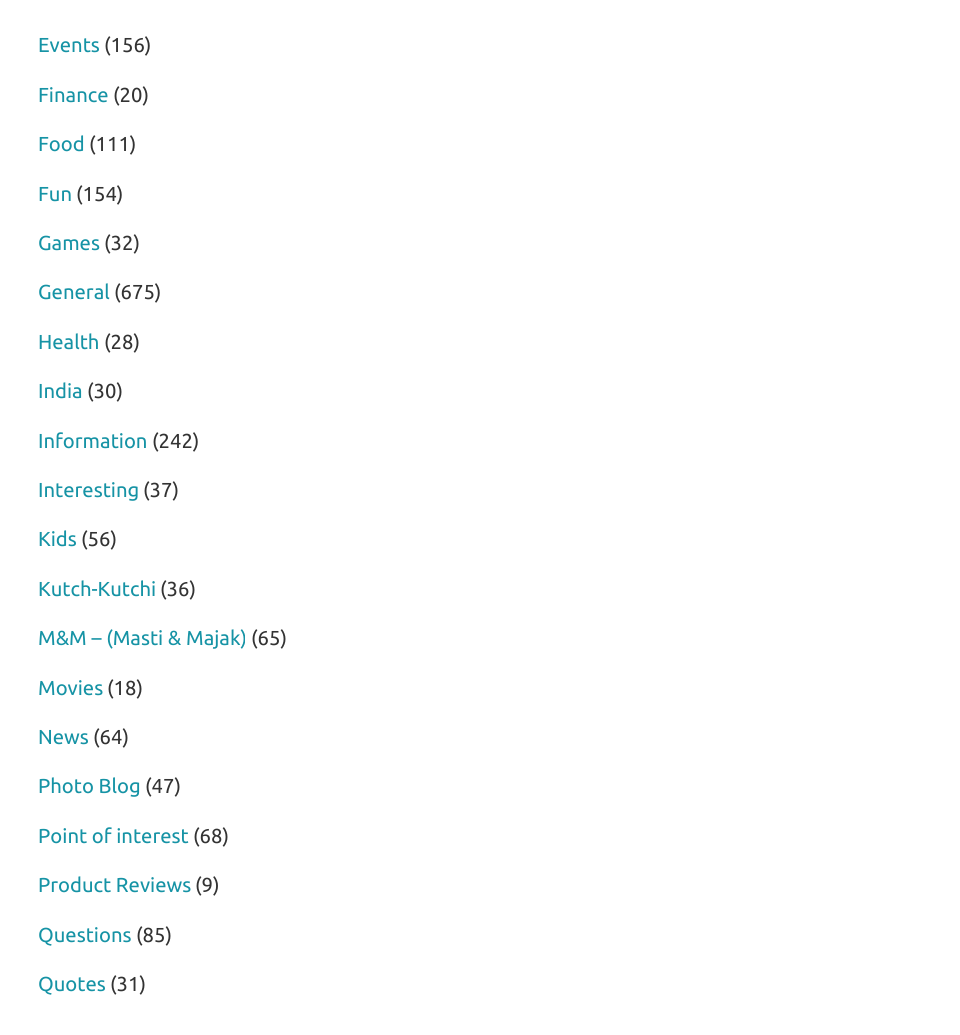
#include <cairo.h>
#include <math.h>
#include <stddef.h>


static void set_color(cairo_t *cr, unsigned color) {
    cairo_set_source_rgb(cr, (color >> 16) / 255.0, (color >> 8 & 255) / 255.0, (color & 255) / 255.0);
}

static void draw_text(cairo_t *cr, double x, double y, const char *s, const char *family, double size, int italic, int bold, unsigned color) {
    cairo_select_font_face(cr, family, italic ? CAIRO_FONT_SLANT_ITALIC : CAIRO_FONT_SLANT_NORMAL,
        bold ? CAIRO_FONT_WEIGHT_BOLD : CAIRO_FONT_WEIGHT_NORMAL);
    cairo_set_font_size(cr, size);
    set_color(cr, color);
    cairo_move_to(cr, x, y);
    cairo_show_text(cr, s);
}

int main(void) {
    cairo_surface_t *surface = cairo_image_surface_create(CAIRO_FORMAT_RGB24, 960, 1035);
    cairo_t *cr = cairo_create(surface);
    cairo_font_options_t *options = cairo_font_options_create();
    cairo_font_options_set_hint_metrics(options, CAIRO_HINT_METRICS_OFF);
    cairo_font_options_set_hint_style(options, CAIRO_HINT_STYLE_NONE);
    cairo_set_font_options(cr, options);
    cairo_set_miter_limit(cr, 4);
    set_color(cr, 0xFFFFFF);
    cairo_paint(cr);
    draw_text(cr, 38, 52, "Events", "Ubuntu", 20.25, 0, 0, 0x1693A5);
    draw_text(cr, 104, 52, "(156)", "Ubuntu", 20.25, 0, 0, 0x333333);
    draw_text(cr, 38, 102, "Finance", "Ubuntu", 20.25, 0, 0, 0x1693A5);
    draw_text(cr, 113, 102, "(20)", "Ubuntu", 20.25, 0, 0, 0x333333);
    draw_text(cr, 38, 151, "Food", "Ubuntu", 20.25, 0, 0, 0x1693A5);
    draw_text(cr, 89, 151, "(111)", "Ubuntu", 20.25, 0, 0, 0x333333);
    draw_text(cr, 38, 201, "Fun", "Ubuntu", 20.25, 0, 0, 0x1693A5);
    draw_text(cr, 76, 201, "(154)", "Ubuntu", 20.25, 0, 0, 0x333333);
    draw_text(cr, 38, 250, "Games", "Ubuntu", 20.25, 0, 0, 0x1693A5);
    draw_text(cr, 104, 250, "(32)", "Ubuntu", 20.25, 0, 0, 0x333333);
    draw_text(cr, 38, 299, "General", "Ubuntu", 20.25, 0, 0, 0x1693A5);
    draw_text(cr, 114, 299, "(675)", "Ubuntu", 20.25, 0, 0, 0x333333);
    draw_text(cr, 38, 349, "Health", "Ubuntu", 20.25, 0, 0, 0x1693A5);
    draw_text(cr, 104, 349, "(28)", "Ubuntu", 20.25, 0, 0, 0x333333);
    draw_text(cr, 38, 398, "India", "Ubuntu", 20.25, 0, 0, 0x1693A5);
    draw_text(cr, 87, 398, "(30)", "Ubuntu", 20.25, 0, 0, 0x333333);
    draw_text(cr, 38, 448, "Information", "Ubuntu", 20.25, 0, 0, 0x1693A5);
    draw_text(cr, 152, 448, "(242)", "Ubuntu", 20.25, 0, 0, 0x333333);
    draw_text(cr, 38, 497, "Interesting", "Ubuntu", 20.25, 0, 0, 0x1693A5);
    draw_text(cr, 143, 497, "(37)", "Ubuntu", 20.25, 0, 0, 0x333333);
    draw_text(cr, 38, 546, "Kids", "Ubuntu", 20.25, 0, 0, 0x1693A5);
    draw_text(cr, 81, 546, "(56)", "Ubuntu", 20.25, 0, 0, 0x333333);
    draw_text(cr, 38, 596, "Kutch-Kutchi", "Ubuntu", 20.25, 0, 0, 0x1693A5);
    draw_text(cr, 160, 596, "(36)", "Ubuntu", 20.25, 0, 0, 0x333333);
    draw_text(cr, 38, 645, "M&M – (Masti & Majak)", "Ubuntu", 20.25, 0, 0, 0x1693A5);
    draw_text(cr, 251, 645, "(65)", "Ubuntu", 20.25, 0, 0, 0x333333);
    draw_text(cr, 38, 695, "Movies", "Ubuntu", 20.25, 0, 0, 0x1693A5);
    draw_text(cr, 107, 695, "(18)", "Ubuntu", 20.25, 0, 0, 0x333333);
    draw_text(cr, 38, 744, "News", "Ubuntu", 20.25, 0, 0, 0x1693A5);
    draw_text(cr, 93, 744, "(64)", "Ubuntu", 20.25, 0, 0, 0x333333);
    draw_text(cr, 38, 793, "Photo Blog", "Ubuntu", 20.25, 0, 0, 0x1693A5);
    draw_text(cr, 145, 793, "(47)", "Ubuntu", 20.25, 0, 0, 0x333333);
    draw_text(cr, 38, 843, "Point of interest", "Ubuntu", 20.25, 0, 0, 0x1693A5);
    draw_text(cr, 193, 843, "(68)", "Ubuntu", 20.25, 0, 0, 0x333333);
    draw_text(cr, 38, 892, "Product Reviews", "Ubuntu", 20.25, 0, 0, 0x1693A5);
    draw_text(cr, 195, 892, "(9)", "Ubuntu", 20.25, 0, 0, 0x333333);
    draw_text(cr, 38, 942, "Questions", "Ubuntu", 20.25, 0, 0, 0x1693A5);
    draw_text(cr, 136, 942, "(85)", "Ubuntu", 20.25, 0, 0, 0x333333);
    draw_text(cr, 38, 991, "Quotes", "Ubuntu", 20.25, 0, 0, 0x1693A5);
    draw_text(cr, 110, 991, "(31)", "Ubuntu", 20.25, 0, 0, 0x333333);
    cairo_surface_write_to_png(surface, "output.png");
    cairo_font_options_destroy(options);
    cairo_destroy(cr);
    cairo_surface_destroy(surface);
    return 0;
}
